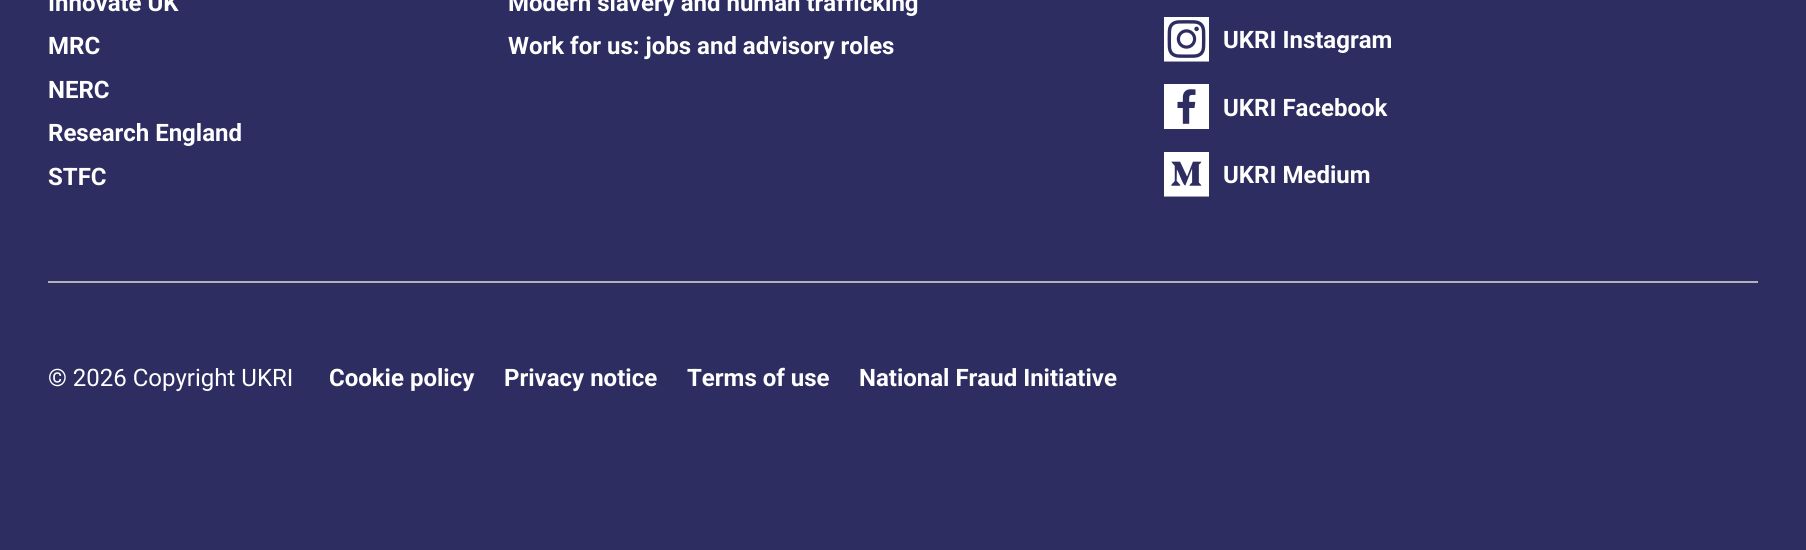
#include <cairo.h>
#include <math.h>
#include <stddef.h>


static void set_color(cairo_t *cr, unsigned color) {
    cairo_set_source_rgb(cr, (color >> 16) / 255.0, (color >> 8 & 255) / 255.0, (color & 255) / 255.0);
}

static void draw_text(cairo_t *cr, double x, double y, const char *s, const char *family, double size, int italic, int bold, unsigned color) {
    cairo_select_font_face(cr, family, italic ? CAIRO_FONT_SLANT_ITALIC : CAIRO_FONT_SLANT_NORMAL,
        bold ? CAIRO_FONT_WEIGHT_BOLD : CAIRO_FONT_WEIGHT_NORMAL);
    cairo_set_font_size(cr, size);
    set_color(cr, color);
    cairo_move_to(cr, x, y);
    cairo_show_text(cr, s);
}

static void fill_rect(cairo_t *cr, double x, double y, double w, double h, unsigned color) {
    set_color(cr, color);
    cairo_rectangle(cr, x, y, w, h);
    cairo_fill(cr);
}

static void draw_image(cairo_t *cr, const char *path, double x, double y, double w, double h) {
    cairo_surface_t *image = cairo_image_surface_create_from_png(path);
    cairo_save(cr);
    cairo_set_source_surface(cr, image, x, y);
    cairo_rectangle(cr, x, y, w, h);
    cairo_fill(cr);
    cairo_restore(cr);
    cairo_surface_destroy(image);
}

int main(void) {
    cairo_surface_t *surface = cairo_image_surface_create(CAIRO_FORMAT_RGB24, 1806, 550);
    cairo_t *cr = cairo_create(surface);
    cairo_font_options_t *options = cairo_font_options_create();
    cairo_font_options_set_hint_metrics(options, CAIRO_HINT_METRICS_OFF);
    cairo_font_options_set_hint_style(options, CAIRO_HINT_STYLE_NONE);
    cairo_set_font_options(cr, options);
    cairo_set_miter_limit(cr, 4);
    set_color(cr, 0x2E2D62);
    cairo_paint(cr);
    draw_text(cr, 48, 11, "Innovate UK", "Roboto", 24, 0, 1, 0xFFFFFF);
    draw_text(cr, 48, 54, "MRC", "Roboto", 24, 0, 1, 0xFFFFFF);
    draw_text(cr, 48, 98, "NERC", "Roboto", 24, 0, 1, 0xFFFFFF);
    draw_text(cr, 48, 141, "Research England", "Roboto", 24, 0, 1, 0xFFFFFF);
    draw_text(cr, 48, 185, "STFC", "Roboto", 24, 0, 1, 0xFFFFFF);
    draw_text(cr, 508, 11, "Modern slavery and human trafficking", "Roboto", 24, 0, 1, 0xFFFFFF);
    draw_text(cr, 508, 54, "Work for us: jobs and advisory roles", "Roboto", 24, 0, 1, 0xFFFFFF);
    draw_image(cr, "assets/img1.png", 1164, 17, 45, 45);
    draw_text(cr, 1223, 48, "UKRI Instagram", "Roboto", 24, 0, 1, 0xFFFFFF);
    draw_image(cr, "assets/img2.png", 1164, 84, 45, 45);
    draw_text(cr, 1223, 116, "UKRI Facebook", "Roboto", 24, 0, 1, 0xFFFFFF);
    draw_image(cr, "assets/img3.png", 1164, 152, 45, 45);
    draw_text(cr, 1223, 183, "UKRI Medium", "Roboto", 24, 0, 1, 0xFFFFFF);
    fill_rect(cr, 48, 281, 1710, 2, 0xB1B4B6);
    draw_text(cr, 48, 386, "© 2026 Copyright UKRI", "Roboto", 24, 0, 0, 0xFFFFFF);
    draw_text(cr, 329, 386, "Cookie policy", "Roboto", 24, 0, 1, 0xFFFFFF);
    draw_text(cr, 504, 386, "Privacy notice", "Roboto", 24, 0, 1, 0xFFFFFF);
    draw_text(cr, 687, 386, "Terms of use", "Roboto", 24, 0, 1, 0xFFFFFF);
    draw_text(cr, 859, 386, "National Fraud Initiative", "Roboto", 24, 0, 1, 0xFFFFFF);
    cairo_surface_write_to_png(surface, "output.png");
    cairo_font_options_destroy(options);
    cairo_destroy(cr);
    cairo_surface_destroy(surface);
    return 0;
}
